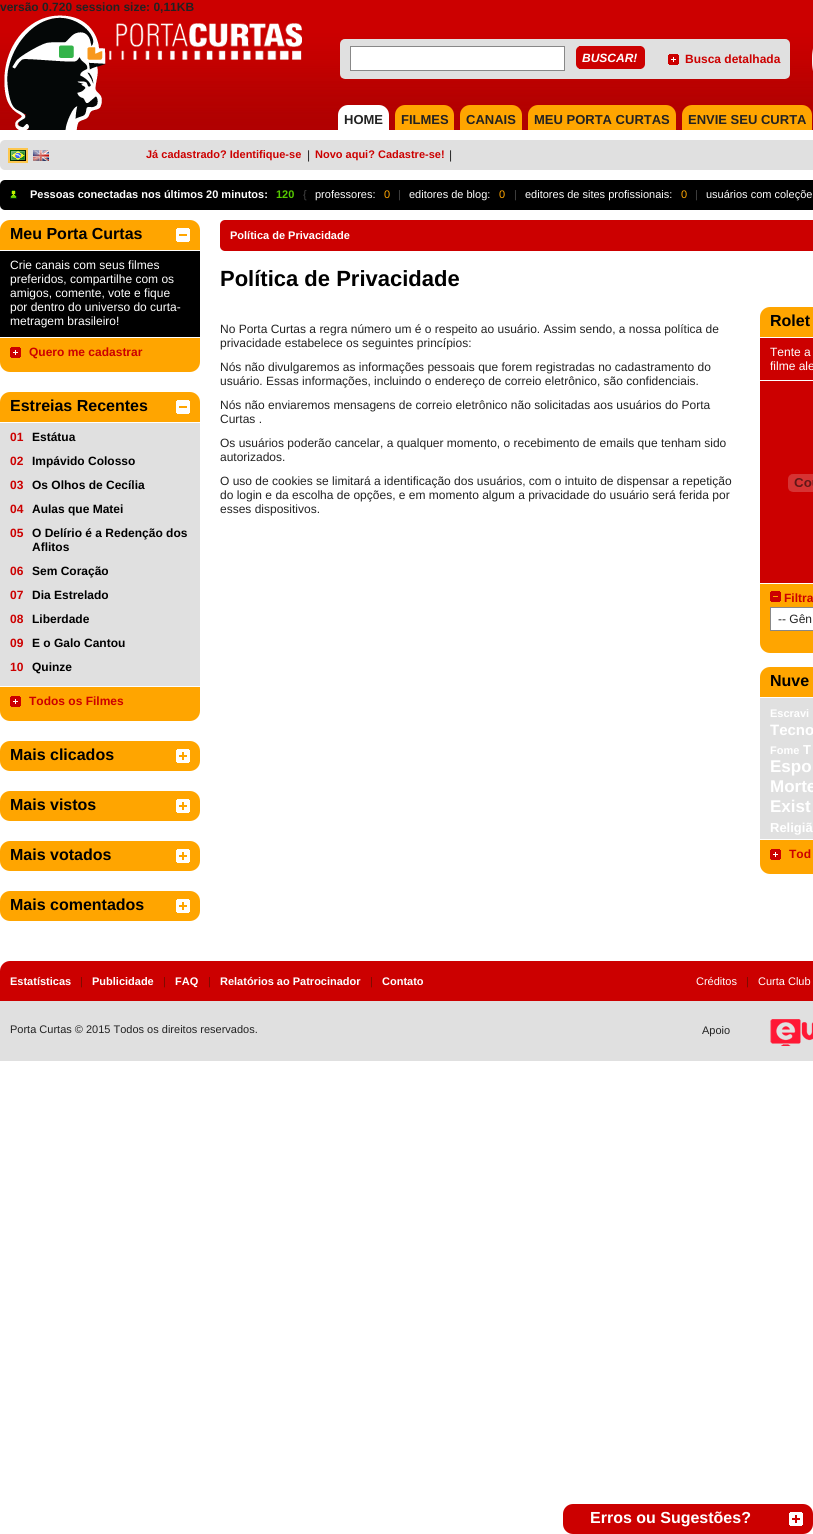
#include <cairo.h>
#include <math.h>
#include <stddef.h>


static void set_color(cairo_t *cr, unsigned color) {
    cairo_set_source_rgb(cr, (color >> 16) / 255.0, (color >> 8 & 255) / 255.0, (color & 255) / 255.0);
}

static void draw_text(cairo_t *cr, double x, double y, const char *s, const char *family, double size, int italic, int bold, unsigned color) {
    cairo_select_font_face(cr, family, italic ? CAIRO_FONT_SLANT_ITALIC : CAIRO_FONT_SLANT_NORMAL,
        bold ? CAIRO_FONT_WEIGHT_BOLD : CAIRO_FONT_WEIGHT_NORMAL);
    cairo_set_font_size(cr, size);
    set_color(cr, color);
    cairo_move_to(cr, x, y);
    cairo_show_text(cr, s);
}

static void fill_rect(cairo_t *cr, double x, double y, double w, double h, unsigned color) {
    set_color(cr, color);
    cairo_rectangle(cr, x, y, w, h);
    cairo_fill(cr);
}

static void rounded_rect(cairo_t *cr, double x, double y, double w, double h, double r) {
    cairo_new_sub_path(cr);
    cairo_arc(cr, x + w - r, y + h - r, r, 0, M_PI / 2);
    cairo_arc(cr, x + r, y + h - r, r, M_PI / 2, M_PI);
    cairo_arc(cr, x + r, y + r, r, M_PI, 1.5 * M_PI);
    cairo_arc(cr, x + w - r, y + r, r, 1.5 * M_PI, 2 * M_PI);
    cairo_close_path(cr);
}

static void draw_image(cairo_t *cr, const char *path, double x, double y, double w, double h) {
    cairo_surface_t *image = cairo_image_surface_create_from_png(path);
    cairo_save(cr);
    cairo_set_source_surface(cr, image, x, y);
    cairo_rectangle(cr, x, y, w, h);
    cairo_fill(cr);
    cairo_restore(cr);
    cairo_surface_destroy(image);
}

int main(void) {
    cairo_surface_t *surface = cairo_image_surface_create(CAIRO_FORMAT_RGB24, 813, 1534);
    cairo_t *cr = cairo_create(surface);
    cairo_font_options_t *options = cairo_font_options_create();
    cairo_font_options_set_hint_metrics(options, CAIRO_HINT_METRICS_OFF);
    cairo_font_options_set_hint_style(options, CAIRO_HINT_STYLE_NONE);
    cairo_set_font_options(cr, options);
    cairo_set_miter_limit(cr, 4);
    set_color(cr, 0xFFFFFF);
    cairo_paint(cr);
    draw_image(cr, "assets/img1.png", 0, 0, 813, 130);
    draw_text(cr, 0, 11, "versão 0.720 session size: 0,11KB", "Liberation Sans", 12, 0, 1, 0x222222);
    draw_image(cr, "assets/img2.png", 4, 15, 298, 115);
    draw_image(cr, "assets/img3.png", 340, 39, 450, 40);
    set_color(cr, 0xFFFFFF);
    cairo_rectangle(cr, 350.5, 46.5, 214, 24);
    cairo_fill_preserve(cr);
    set_color(cr, 0x888888);
    cairo_set_line_width(cr, 1);
    cairo_stroke(cr);
    set_color(cr, 0xCC0000);
    rounded_rect(cr, 576, 46, 69, 23, 5);
    cairo_fill(cr);
    fill_rect(cr, 579, 46, 62, 23, 0xCC0000);
    draw_text(cr, 582, 62, "BUSCAR!", "Liberation Sans", 12, 1, 1, 0xFFFFFF);
    draw_image(cr, "assets/img4.png", 668, 54, 11, 11);
    draw_text(cr, 685, 63, "Busca detalhada", "Liberation Sans", 12, 0, 1, 0xCC0000);
    draw_image(cr, "assets/img5.png", 812, 48, 1, 23);
    set_color(cr, 0xFFFFFF);
    cairo_new_path(cr);
    cairo_move_to(cr, 348, 105);
    cairo_line_to(cr, 379, 105);
    cairo_curve_to(cr, 384.5, 105, 389, 109.5, 389, 115);
    cairo_line_to(cr, 389, 130);
    cairo_line_to(cr, 338, 130);
    cairo_line_to(cr, 338, 115);
    cairo_curve_to(cr, 338, 109.5, 342.5, 105, 348, 105);
    cairo_close_path(cr);
    cairo_fill(cr);
    draw_text(cr, 344, 124, "HOME", "Liberation Sans", 13, 0, 1, 0x222222);
    set_color(cr, 0xFFA500);
    cairo_new_path(cr);
    cairo_move_to(cr, 405, 105);
    cairo_line_to(cr, 444, 105);
    cairo_curve_to(cr, 449.5, 105, 454, 109.5, 454, 115);
    cairo_line_to(cr, 454, 130);
    cairo_line_to(cr, 395, 130);
    cairo_line_to(cr, 395, 115);
    cairo_curve_to(cr, 395, 109.5, 399.5, 105, 405, 105);
    cairo_close_path(cr);
    cairo_fill(cr);
    draw_text(cr, 401, 124, "FILMES", "Liberation Sans", 13, 0, 1, 0x222222);
    set_color(cr, 0xFFA500);
    cairo_new_path(cr);
    cairo_move_to(cr, 470, 105);
    cairo_line_to(cr, 512, 105);
    cairo_curve_to(cr, 517.5, 105, 522, 109.5, 522, 115);
    cairo_line_to(cr, 522, 130);
    cairo_line_to(cr, 460, 130);
    cairo_line_to(cr, 460, 115);
    cairo_curve_to(cr, 460, 109.5, 464.5, 105, 470, 105);
    cairo_close_path(cr);
    cairo_fill(cr);
    draw_text(cr, 466, 124, "CANAIS", "Liberation Sans", 13, 0, 1, 0x222222);
    set_color(cr, 0xFFA500);
    cairo_new_path(cr);
    cairo_move_to(cr, 538, 105);
    cairo_line_to(cr, 666, 105);
    cairo_curve_to(cr, 671.5, 105, 676, 109.5, 676, 115);
    cairo_line_to(cr, 676, 130);
    cairo_line_to(cr, 528, 130);
    cairo_line_to(cr, 528, 115);
    cairo_curve_to(cr, 528, 109.5, 532.5, 105, 538, 105);
    cairo_close_path(cr);
    cairo_fill(cr);
    draw_text(cr, 534, 124, "MEU PORTA CURTAS", "Liberation Sans", 13, 0, 1, 0x222222);
    set_color(cr, 0xFFA500);
    cairo_new_path(cr);
    cairo_move_to(cr, 692, 105);
    cairo_line_to(cr, 802, 105);
    cairo_curve_to(cr, 807.5, 105, 812, 109.5, 812, 115);
    cairo_line_to(cr, 812, 130);
    cairo_line_to(cr, 682, 130);
    cairo_line_to(cr, 682, 115);
    cairo_curve_to(cr, 682, 109.5, 686.5, 105, 692, 105);
    cairo_close_path(cr);
    cairo_fill(cr);
    draw_text(cr, 688, 124, "ENVIE SEU CURTA", "Liberation Sans", 13, 0, 1, 0x222222);
    set_color(cr, 0xE0E0E0);
    rounded_rect(cr, 0, 140, 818, 30, 5);
    cairo_fill(cr);
    cairo_rectangle(cr, 9, 149, 18, 13);
    set_color(cr, 0xFDC74F);
    cairo_set_line_width(cr, 2);
    cairo_stroke(cr);
    draw_image(cr, "assets/img6.png", 10, 150, 16, 11);
    draw_image(cr, "assets/img7.png", 33, 150, 16, 11);
    draw_text(cr, 146, 158, "Já cadastrado? Identifique-se", "Liberation Sans", 11, 0, 1, 0xCC0000);
    draw_text(cr, 307, 159, "|", "Liberation Sans", 12, 0, 0, 0x222222);
    draw_text(cr, 315, 158, "Novo aqui? Cadastre-se!", "Liberation Sans", 11, 0, 1, 0xCC0000);
    draw_text(cr, 449, 159, "|", "Liberation Sans", 12, 0, 0, 0x222222);
    set_color(cr, 0x000000);
    rounded_rect(cr, 0, 180, 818, 30, 5);
    cairo_fill(cr);
    draw_image(cr, "assets/img8.png", 10, 190, 7, 9);
    draw_text(cr, 30, 198, "Pessoas conectadas nos últimos 20 minutos:", "Liberation Sans", 11, 0, 1, 0xFFFFFF);
    draw_text(cr, 276, 198, "120", "Liberation Sans", 11, 0, 1, 0x55C800);
    draw_text(cr, 303, 198, "{", "Liberation Sans", 11, 0, 0, 0x444444);
    draw_text(cr, 315, 198, "professores:", "Liberation Sans", 11, 0, 0, 0xFFFFFF);
    draw_text(cr, 384, 198, "0", "Liberation Sans", 11, 0, 0, 0xFFA500);
    draw_text(cr, 398, 198, "|", "Liberation Sans", 11, 0, 0, 0x444444);
    draw_text(cr, 409, 198, "editores de blog:", "Liberation Sans", 11, 0, 0, 0xFFFFFF);
    draw_text(cr, 499, 198, "0", "Liberation Sans", 11, 0, 0, 0xFFA500);
    draw_text(cr, 514, 198, "|", "Liberation Sans", 11, 0, 0, 0x444444);
    draw_text(cr, 525, 198, "editores de sites profissionais:", "Liberation Sans", 11, 0, 0, 0xFFFFFF);
    draw_text(cr, 681, 198, "0", "Liberation Sans", 11, 0, 0, 0xFFA500);
    draw_text(cr, 695, 198, "|", "Liberation Sans", 11, 0, 0, 0x444444);
    draw_text(cr, 706, 198, "usuários com coleçõe", "Liberation Sans", 11, 0, 0, 0xFFFFFF);
    set_color(cr, 0xFFA500);
    cairo_new_path(cr);
    cairo_move_to(cr, 10, 220);
    cairo_line_to(cr, 190, 220);
    cairo_curve_to(cr, 195.5, 220, 200, 224.5, 200, 230);
    cairo_line_to(cr, 200, 250);
    cairo_line_to(cr, 0, 250);
    cairo_line_to(cr, 0, 230);
    cairo_curve_to(cr, 0, 224.5, 4.5, 220, 10, 220);
    cairo_close_path(cr);
    cairo_fill(cr);
    draw_text(cr, 10, 239, "Meu Porta Curtas", "Liberation Sans", 16, 0, 1, 0x000000);
    draw_image(cr, "assets/img9.png", 176, 228, 14, 14);
    fill_rect(cr, 0, 251, 200, 86, 0x000000);
    draw_text(cr, 10, 269, "Crie canais com seus filmes", "Liberation Sans", 12, 0, 0, 0xFFFFFF);
    draw_text(cr, 10, 283, "preferidos, compartilhe com os", "Liberation Sans", 12, 0, 0, 0xFFFFFF);
    draw_text(cr, 10, 297, "amigos, comente, vote e fique", "Liberation Sans", 12, 0, 0, 0xFFFFFF);
    draw_text(cr, 10, 311, "por dentro do universo do curta-", "Liberation Sans", 12, 0, 0, 0xFFFFFF);
    draw_text(cr, 10, 325, "metragem brasileiro!", "Liberation Sans", 12, 0, 0, 0xFFFFFF);
    set_color(cr, 0xFFA500);
    cairo_new_path(cr);
    cairo_move_to(cr, 0, 338);
    cairo_line_to(cr, 200, 338);
    cairo_line_to(cr, 200, 362);
    cairo_curve_to(cr, 200, 367.5, 195.5, 372, 190, 372);
    cairo_line_to(cr, 10, 372);
    cairo_curve_to(cr, 4.5, 372, 0, 367.5, 0, 362);
    cairo_close_path(cr);
    cairo_fill(cr);
    draw_image(cr, "assets/img10.png", 10, 347, 11, 11);
    draw_text(cr, 29, 356, "Quero me cadastrar", "Liberation Sans", 12, 0, 1, 0xCC0000);
    set_color(cr, 0xFFA500);
    cairo_new_path(cr);
    cairo_move_to(cr, 10, 392);
    cairo_line_to(cr, 190, 392);
    cairo_curve_to(cr, 195.5, 392, 200, 396.5, 200, 402);
    cairo_line_to(cr, 200, 422);
    cairo_line_to(cr, 0, 422);
    cairo_line_to(cr, 0, 402);
    cairo_curve_to(cr, 0, 396.5, 4.5, 392, 10, 392);
    cairo_close_path(cr);
    cairo_fill(cr);
    draw_text(cr, 10, 411, "Estreias Recentes", "Liberation Sans", 16, 0, 1, 0x000000);
    draw_image(cr, "assets/img9.png", 176, 400, 14, 14);
    fill_rect(cr, 0, 423, 200, 263, 0xE0E0E0);
    draw_text(cr, 10, 441, "01", "Liberation Sans", 12, 0, 1, 0xCC0000);
    draw_text(cr, 32, 441, "Estátua", "Liberation Sans", 12, 0, 1, 0x000000);
    draw_text(cr, 10, 465, "02", "Liberation Sans", 12, 0, 1, 0xCC0000);
    draw_text(cr, 32, 465, "Impávido Colosso", "Liberation Sans", 12, 0, 1, 0x000000);
    draw_text(cr, 10, 489, "03", "Liberation Sans", 12, 0, 1, 0xCC0000);
    draw_text(cr, 32, 489, "Os Olhos de Cecília", "Liberation Sans", 12, 0, 1, 0x000000);
    draw_text(cr, 10, 513, "04", "Liberation Sans", 12, 0, 1, 0xCC0000);
    draw_text(cr, 32, 513, "Aulas que Matei", "Liberation Sans", 12, 0, 1, 0x000000);
    draw_text(cr, 10, 537, "05", "Liberation Sans", 12, 0, 1, 0xCC0000);
    draw_text(cr, 32, 537, "O Delírio é a Redenção dos", "Liberation Sans", 12, 0, 1, 0x000000);
    draw_text(cr, 32, 551, "Aflitos", "Liberation Sans", 12, 0, 1, 0x000000);
    draw_text(cr, 10, 575, "06", "Liberation Sans", 12, 0, 1, 0xCC0000);
    draw_text(cr, 32, 575, "Sem Coração", "Liberation Sans", 12, 0, 1, 0x000000);
    draw_text(cr, 10, 599, "07", "Liberation Sans", 12, 0, 1, 0xCC0000);
    draw_text(cr, 32, 599, "Dia Estrelado", "Liberation Sans", 12, 0, 1, 0x000000);
    draw_text(cr, 10, 623, "08", "Liberation Sans", 12, 0, 1, 0xCC0000);
    draw_text(cr, 32, 623, "Liberdade", "Liberation Sans", 12, 0, 1, 0x000000);
    draw_text(cr, 10, 647, "09", "Liberation Sans", 12, 0, 1, 0xCC0000);
    draw_text(cr, 32, 647, "E o Galo Cantou", "Liberation Sans", 12, 0, 1, 0x000000);
    draw_text(cr, 10, 671, "10", "Liberation Sans", 12, 0, 1, 0xCC0000);
    draw_text(cr, 32, 671, "Quinze", "Liberation Sans", 12, 0, 1, 0x000000);
    set_color(cr, 0xFFA500);
    cairo_new_path(cr);
    cairo_move_to(cr, 0, 687);
    cairo_line_to(cr, 200, 687);
    cairo_line_to(cr, 200, 711);
    cairo_curve_to(cr, 200, 716.5, 195.5, 721, 190, 721);
    cairo_line_to(cr, 10, 721);
    cairo_curve_to(cr, 4.5, 721, 0, 716.5, 0, 711);
    cairo_close_path(cr);
    cairo_fill(cr);
    draw_image(cr, "assets/img10.png", 10, 696, 11, 11);
    draw_text(cr, 29, 705, "Todos os Filmes", "Liberation Sans", 12, 0, 1, 0xCC0000);
    set_color(cr, 0xFFA500);
    rounded_rect(cr, 0, 741, 200, 30, 10);
    cairo_fill(cr);
    draw_text(cr, 10, 760, "Mais clicados", "Liberation Sans", 16, 0, 1, 0x000000);
    draw_image(cr, "assets/img11.png", 176, 749, 14, 14);
    set_color(cr, 0xFFA500);
    rounded_rect(cr, 0, 791, 200, 30, 10);
    cairo_fill(cr);
    draw_text(cr, 10, 810, "Mais vistos", "Liberation Sans", 16, 0, 1, 0x000000);
    draw_image(cr, "assets/img11.png", 176, 799, 14, 14);
    set_color(cr, 0xFFA500);
    rounded_rect(cr, 0, 841, 200, 30, 10);
    cairo_fill(cr);
    draw_text(cr, 10, 860, "Mais votados", "Liberation Sans", 16, 0, 1, 0x000000);
    draw_image(cr, "assets/img11.png", 176, 849, 14, 14);
    set_color(cr, 0xFFA500);
    rounded_rect(cr, 0, 891, 200, 30, 10);
    cairo_fill(cr);
    draw_text(cr, 10, 910, "Mais comentados", "Liberation Sans", 16, 0, 1, 0x000000);
    draw_image(cr, "assets/img11.png", 176, 899, 14, 14);
    set_color(cr, 0xCC0000);
    rounded_rect(cr, 220, 220, 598, 31, 5);
    cairo_fill(cr);
    draw_text(cr, 230, 239, "Política de Privacidade", "Liberation Sans", 11, 0, 1, 0xFFFFFF);
    draw_text(cr, 220, 286, "Política de Privacidade", "Liberation Sans", 22, 0, 1, 0x000000);
    draw_text(cr, 220, 333, "No Porta Curtas a regra número um é o respeito ao usuário. Assim sendo, a nossa política de", "Liberation Sans", 12, 0, 0, 0x222222);
    draw_text(cr, 220, 347, "privacidade estabelece os seguintes princípios:", "Liberation Sans", 12, 0, 0, 0x222222);
    draw_text(cr, 220, 371, "Nós não divulgaremos as informações pessoais que forem registradas no cadastramento do", "Liberation Sans", 12, 0, 0, 0x222222);
    draw_text(cr, 220, 385, "usuário. Essas informações, incluindo o endereço de correio eletrônico, são confidenciais.", "Liberation Sans", 12, 0, 0, 0x222222);
    draw_text(cr, 220, 409, "Nós não enviaremos mensagens de correio eletrônico não solicitadas aos usuários do Porta", "Liberation Sans", 12, 0, 0, 0x222222);
    draw_text(cr, 220, 423, "Curtas .", "Liberation Sans", 12, 0, 0, 0x222222);
    draw_text(cr, 220, 447, "Os usuários poderão cancelar, a qualquer momento, o recebimento de emails que tenham sido", "Liberation Sans", 12, 0, 0, 0x222222);
    draw_text(cr, 220, 461, "autorizados.", "Liberation Sans", 12, 0, 0, 0x222222);
    draw_text(cr, 220, 485, "O uso de cookies se limitará a identificação dos usuários, com o intuito de dispensar a repetição", "Liberation Sans", 12, 0, 0, 0x222222);
    draw_text(cr, 220, 499, "do login e da escolha de opções, e em momento algum a privacidade do usuário será ferida por", "Liberation Sans", 12, 0, 0, 0x222222);
    draw_text(cr, 220, 513, "esses dispositivos.", "Liberation Sans", 12, 0, 0, 0x222222);
    set_color(cr, 0xFFA500);
    cairo_new_path(cr);
    cairo_move_to(cr, 770, 307);
    cairo_line_to(cr, 813, 307);
    cairo_curve_to(cr, 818.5, 307, 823, 311.5, 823, 317);
    cairo_line_to(cr, 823, 337);
    cairo_line_to(cr, 760, 337);
    cairo_line_to(cr, 760, 317);
    cairo_curve_to(cr, 760, 311.5, 764.5, 307, 770, 307);
    cairo_close_path(cr);
    cairo_fill(cr);
    draw_text(cr, 770, 326, "Rolet", "Liberation Sans", 16, 0, 1, 0x000000);
    fill_rect(cr, 760, 338, 53, 42, 0xCC0000);
    draw_text(cr, 770, 356, "Tente a", "Liberation Sans", 12, 0, 0, 0xFFFFFF);
    draw_text(cr, 770, 370, "filme ale", "Liberation Sans", 12, 0, 0, 0xFFFFFF);
    fill_rect(cr, 760, 381, 53, 202, 0xCC0000);
    draw_image(cr, "assets/img12.png", 788, 474, 25, 18);
    set_color(cr, 0xFFA500);
    cairo_new_path(cr);
    cairo_move_to(cr, 760, 584);
    cairo_line_to(cr, 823, 584);
    cairo_line_to(cr, 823, 643);
    cairo_curve_to(cr, 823, 648.5, 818.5, 653, 813, 653);
    cairo_line_to(cr, 770, 653);
    cairo_curve_to(cr, 764.5, 653, 760, 648.5, 760, 643);
    cairo_close_path(cr);
    cairo_fill(cr);
    draw_image(cr, "assets/img13.png", 770, 591, 11, 11);
    draw_text(cr, 784, 602, "Filtra", "Liberation Sans", 12, 0, 1, 0xCC0000);
    set_color(cr, 0xFFFFFF);
    cairo_rectangle(cr, 770.5, 607.5, 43, 23);
    cairo_fill_preserve(cr);
    set_color(cr, 0x888888);
    cairo_set_line_width(cr, 1);
    cairo_stroke(cr);
    draw_text(cr, 778, 623, "-- Gên", "Liberation Sans", 12, 0, 0, 0x222222);
    set_color(cr, 0xFFA500);
    cairo_new_path(cr);
    cairo_move_to(cr, 770, 667);
    cairo_line_to(cr, 813, 667);
    cairo_curve_to(cr, 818.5, 667, 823, 671.5, 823, 677);
    cairo_line_to(cr, 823, 697);
    cairo_line_to(cr, 760, 697);
    cairo_line_to(cr, 760, 677);
    cairo_curve_to(cr, 760, 671.5, 764.5, 667, 770, 667);
    cairo_close_path(cr);
    cairo_fill(cr);
    draw_text(cr, 770, 686, "Nuve", "Liberation Sans", 16, 0, 1, 0x000000);
    fill_rect(cr, 760, 698, 53, 141, 0xE0E0E0);
    draw_text(cr, 770, 717, "Escravi", "Liberation Sans", 11, 0, 1, 0xFFFFFF);
    draw_text(cr, 770, 735, "Tecno", "Liberation Sans", 15, 0, 1, 0xFFFFFF);
    draw_text(cr, 770, 754, "Fome", "Liberation Sans", 11, 0, 1, 0xFFFFFF);
    draw_text(cr, 803, 754, "T", "Liberation Sans", 13, 0, 1, 0xFFFFFF);
    draw_text(cr, 770, 772, "Espo", "Liberation Sans", 17, 0, 1, 0xFFFFFF);
    draw_text(cr, 770, 792, "Morte", "Liberation Sans", 17, 0, 1, 0xFFFFFF);
    draw_text(cr, 770, 812, "Exist", "Liberation Sans", 17, 0, 1, 0xFFFFFF);
    draw_text(cr, 770, 832, "Religiã", "Liberation Sans", 13, 0, 1, 0xFFFFFF);
    set_color(cr, 0xFFA500);
    cairo_new_path(cr);
    cairo_move_to(cr, 760, 840);
    cairo_line_to(cr, 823, 840);
    cairo_line_to(cr, 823, 864);
    cairo_curve_to(cr, 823, 869.5, 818.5, 874, 813, 874);
    cairo_line_to(cr, 770, 874);
    cairo_curve_to(cr, 764.5, 874, 760, 869.5, 760, 864);
    cairo_close_path(cr);
    cairo_fill(cr);
    draw_image(cr, "assets/img10.png", 770, 849, 11, 11);
    draw_text(cr, 789, 858, "Tod", "Liberation Sans", 12, 0, 1, 0xCC0000);
    cairo_new_path(cr);
    cairo_move_to(cr, 10, 961);
    cairo_line_to(cr, 813, 961);
    cairo_curve_to(cr, 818.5, 961, 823, 965.5, 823, 971);
    cairo_line_to(cr, 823, 1001);
    cairo_line_to(cr, 0, 1001);
    cairo_line_to(cr, 0, 971);
    cairo_curve_to(cr, 0, 965.5, 4.5, 961, 10, 961);
    cairo_close_path(cr);
    cairo_fill(cr);
    draw_text(cr, 10, 985, "Estatísticas", "Liberation Sans", 11, 0, 1, 0xFFFFFF);
    draw_text(cr, 80, 985, "|", "Liberation Sans", 11, 0, 0, 0x740C00);
    draw_text(cr, 92, 985, "Publicidade", "Liberation Sans", 11, 0, 1, 0xFFFFFF);
    draw_text(cr, 163, 985, "|", "Liberation Sans", 11, 0, 0, 0x740C00);
    draw_text(cr, 175, 985, "FAQ", "Liberation Sans", 11, 0, 1, 0xFFFFFF);
    draw_text(cr, 208, 985, "|", "Liberation Sans", 11, 0, 0, 0x740C00);
    draw_text(cr, 220, 985, "Relatórios ao Patrocinador", "Liberation Sans", 11, 0, 1, 0xFFFFFF);
    draw_text(cr, 370, 985, "|", "Liberation Sans", 11, 0, 0, 0x740C00);
    draw_text(cr, 382, 985, "Contato", "Liberation Sans", 11, 0, 1, 0xFFFFFF);
    draw_text(cr, 696, 985, "Créditos", "Liberation Sans", 11, 0, 0, 0xFFFFFF);
    draw_text(cr, 746, 985, "|", "Liberation Sans", 11, 0, 0, 0x740C00);
    draw_text(cr, 758, 985, "Curta Club", "Liberation Sans", 11, 0, 0, 0xFFFFFF);
    fill_rect(cr, 0, 1001, 813, 60, 0xE0E0E0);
    draw_text(cr, 10, 1033, "Porta Curtas © 2015 Todos os direitos reservados.", "Liberation Sans", 11, 0, 0, 0x222222);
    draw_text(cr, 702, 1034, "Apoio", "Liberation Sans", 11, 0, 0, 0x222222);
    draw_image(cr, "assets/img14.png", 770, 1019, 43, 27);
    set_color(cr, 0xCC0000);
    rounded_rect(cr, 563, 1504, 250, 30, 10);
    cairo_fill(cr);
    draw_text(cr, 590, 1523, "Erros ou Sugestões?", "Liberation Sans", 16, 0, 1, 0xFFFFFF);
    draw_image(cr, "assets/img15.png", 789, 1512, 14, 14);
    cairo_surface_write_to_png(surface, "output.png");
    cairo_font_options_destroy(options);
    cairo_destroy(cr);
    cairo_surface_destroy(surface);
    return 0;
}
